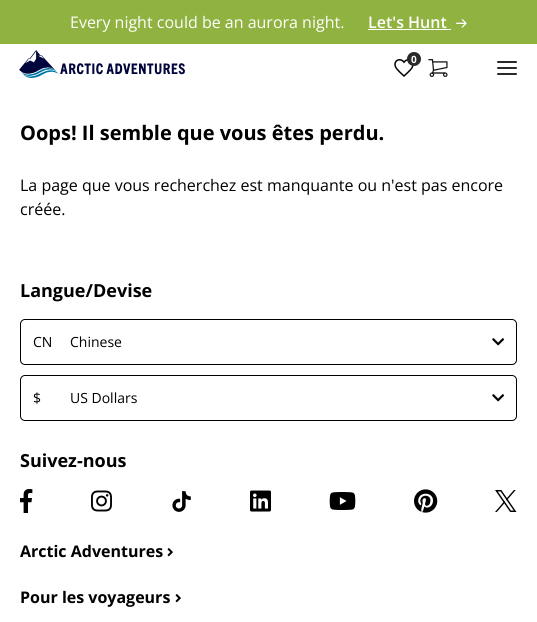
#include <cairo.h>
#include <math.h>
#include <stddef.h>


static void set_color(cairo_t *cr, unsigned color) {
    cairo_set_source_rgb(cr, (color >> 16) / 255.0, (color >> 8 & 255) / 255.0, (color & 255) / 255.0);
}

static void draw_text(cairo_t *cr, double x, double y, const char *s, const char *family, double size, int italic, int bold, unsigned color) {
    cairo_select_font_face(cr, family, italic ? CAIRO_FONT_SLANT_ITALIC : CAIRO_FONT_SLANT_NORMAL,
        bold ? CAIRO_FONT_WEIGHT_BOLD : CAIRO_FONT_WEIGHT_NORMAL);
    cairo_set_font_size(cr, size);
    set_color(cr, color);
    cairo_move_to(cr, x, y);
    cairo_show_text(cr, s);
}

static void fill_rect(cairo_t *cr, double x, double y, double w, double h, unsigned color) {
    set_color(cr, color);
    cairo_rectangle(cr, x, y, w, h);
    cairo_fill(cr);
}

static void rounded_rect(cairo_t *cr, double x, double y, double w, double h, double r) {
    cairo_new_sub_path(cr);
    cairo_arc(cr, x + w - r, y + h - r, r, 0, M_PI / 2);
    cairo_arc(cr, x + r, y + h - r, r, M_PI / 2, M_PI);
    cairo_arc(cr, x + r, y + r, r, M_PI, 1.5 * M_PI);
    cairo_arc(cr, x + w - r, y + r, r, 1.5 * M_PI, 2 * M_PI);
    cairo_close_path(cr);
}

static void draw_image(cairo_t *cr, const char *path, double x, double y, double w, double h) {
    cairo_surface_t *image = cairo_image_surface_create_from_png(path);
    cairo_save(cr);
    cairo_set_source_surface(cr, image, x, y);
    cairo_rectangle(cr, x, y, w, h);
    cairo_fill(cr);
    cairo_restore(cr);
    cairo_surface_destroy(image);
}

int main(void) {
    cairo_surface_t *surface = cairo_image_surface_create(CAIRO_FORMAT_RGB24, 537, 622);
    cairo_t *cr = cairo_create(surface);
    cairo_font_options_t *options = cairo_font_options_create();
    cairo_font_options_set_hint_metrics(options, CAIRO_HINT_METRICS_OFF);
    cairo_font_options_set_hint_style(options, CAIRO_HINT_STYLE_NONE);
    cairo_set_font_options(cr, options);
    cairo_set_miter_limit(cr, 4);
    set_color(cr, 0xFFFFFF);
    cairo_paint(cr);
    fill_rect(cr, 0, 0, 537, 44, 0x90B240);
    draw_text(cr, 70, 28, "Every night could be an aurora night.", "Open Sans", 16, 0, 0, 0xFFFFFF);
    draw_text(cr, 368, 28, "Let's Hunt", "Open Sans SemiBold", 16, 0, 0, 0xFFFFFF);
    fill_rect(cr, 368, 29, 83, 1, 0xFFFFFF);
    draw_image(cr, "assets/img1.png", 456, 19, 11, 9);
    draw_image(cr, "assets/img2.png", 19, 50, 166, 28);
    draw_image(cr, "assets/img3.png", 394, 59, 20, 18);
    set_color(cr, 0x292929);
    cairo_arc(cr, 414, 59, 7, 0, 2 * M_PI);
    cairo_fill(cr);
    draw_text(cr, 411, 63, "0", "Open Sans", 10, 0, 1, 0xFFFFFF);
    draw_image(cr, "assets/img4.png", 428, 59, 20, 18);
    cairo_new_path(cr);
    cairo_move_to(cr, 498, 62);
    cairo_line_to(cr, 516, 62);
    cairo_move_to(cr, 498, 68);
    cairo_line_to(cr, 516, 68);
    cairo_move_to(cr, 498, 74);
    cairo_line_to(cr, 516, 74);
    set_color(cr, 0x292929);
    cairo_set_line_cap(cr, CAIRO_LINE_CAP_ROUND);
    cairo_set_line_join(cr, CAIRO_LINE_JOIN_ROUND);
    cairo_stroke(cr);
    draw_text(cr, 20, 140, "Oops! Il semble que vous êtes perdu.", "Open Sans", 20, 0, 1, 0x000000);
    draw_text(cr, 20, 191, "La page que vous recherchez est manquante ou n'est pas encore", "Open Sans", 16, 0, 0, 0x000000);
    draw_text(cr, 20, 215, "créée.", "Open Sans", 16, 0, 0, 0x000000);
    draw_text(cr, 20, 297, "Langue/Devise", "Open Sans", 18, 0, 1, 0x000000);
    rounded_rect(cr, 20.5, 319.5, 496, 45, 4.5);
    cairo_set_line_width(cr, 1);
    cairo_set_line_cap(cr, CAIRO_LINE_CAP_BUTT);
    cairo_set_line_join(cr, CAIRO_LINE_JOIN_MITER);
    cairo_stroke(cr);
    draw_text(cr, 33, 347, "CN", "Open Sans", 14, 0, 0, 0x000000);
    draw_text(cr, 70, 347, "Chinese", "Open Sans", 14, 0, 0, 0x000000);
    draw_image(cr, "assets/img5.png", 492, 338, 12, 8);
    rounded_rect(cr, 20.5, 375.5, 496, 45, 4.5);
    cairo_stroke(cr);
    draw_text(cr, 33, 403, "$", "Open Sans", 14, 0, 0, 0x000000);
    draw_text(cr, 70, 403, "US Dollars", "Open Sans", 14, 0, 0, 0x000000);
    draw_image(cr, "assets/img5.png", 492, 394, 12, 8);
    draw_text(cr, 20, 467, "Suivez-nous", "Open Sans", 18, 0, 1, 0x000000);
    draw_image(cr, "assets/img6.png", 20, 489, 13, 24);
    draw_image(cr, "assets/img7.png", 91, 490, 21, 22);
    draw_image(cr, "assets/img8.png", 172, 491, 19, 21);
    draw_image(cr, "assets/img9.png", 250, 490, 21, 22);
    draw_image(cr, "assets/img10.png", 329, 492, 27, 18);
    draw_image(cr, "assets/img11.png", 414, 489, 24, 24);
    draw_image(cr, "assets/img12.png", 495, 490, 22, 22);
    draw_text(cr, 20, 557, "Arctic Adventures", "Open Sans", 16, 0, 1, 0x000000);
    draw_image(cr, "assets/img13.png", 167, 548, 6, 9);
    draw_text(cr, 20, 603, "Pour les voyageurs", "Open Sans", 16, 0, 1, 0x000000);
    draw_image(cr, "assets/img13.png", 175, 594, 6, 9);
    cairo_surface_write_to_png(surface, "output.png");
    cairo_font_options_destroy(options);
    cairo_destroy(cr);
    cairo_surface_destroy(surface);
    return 0;
}
